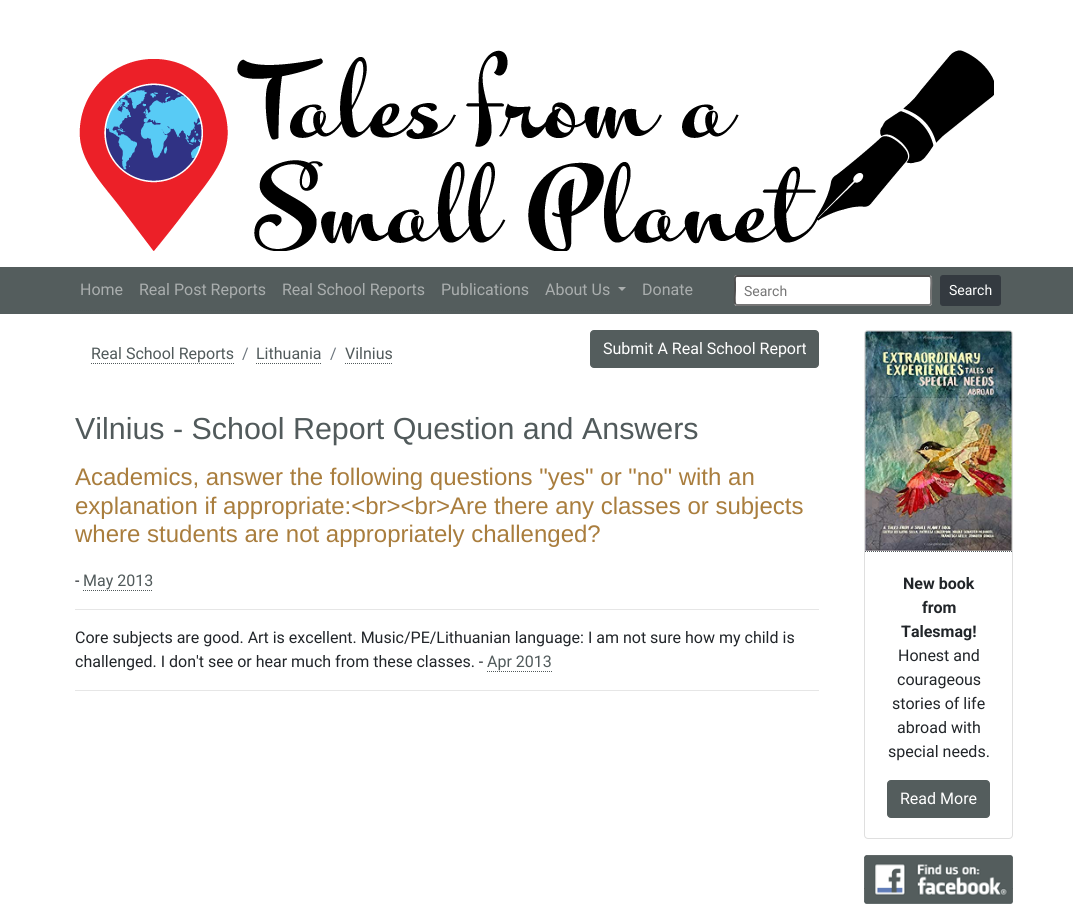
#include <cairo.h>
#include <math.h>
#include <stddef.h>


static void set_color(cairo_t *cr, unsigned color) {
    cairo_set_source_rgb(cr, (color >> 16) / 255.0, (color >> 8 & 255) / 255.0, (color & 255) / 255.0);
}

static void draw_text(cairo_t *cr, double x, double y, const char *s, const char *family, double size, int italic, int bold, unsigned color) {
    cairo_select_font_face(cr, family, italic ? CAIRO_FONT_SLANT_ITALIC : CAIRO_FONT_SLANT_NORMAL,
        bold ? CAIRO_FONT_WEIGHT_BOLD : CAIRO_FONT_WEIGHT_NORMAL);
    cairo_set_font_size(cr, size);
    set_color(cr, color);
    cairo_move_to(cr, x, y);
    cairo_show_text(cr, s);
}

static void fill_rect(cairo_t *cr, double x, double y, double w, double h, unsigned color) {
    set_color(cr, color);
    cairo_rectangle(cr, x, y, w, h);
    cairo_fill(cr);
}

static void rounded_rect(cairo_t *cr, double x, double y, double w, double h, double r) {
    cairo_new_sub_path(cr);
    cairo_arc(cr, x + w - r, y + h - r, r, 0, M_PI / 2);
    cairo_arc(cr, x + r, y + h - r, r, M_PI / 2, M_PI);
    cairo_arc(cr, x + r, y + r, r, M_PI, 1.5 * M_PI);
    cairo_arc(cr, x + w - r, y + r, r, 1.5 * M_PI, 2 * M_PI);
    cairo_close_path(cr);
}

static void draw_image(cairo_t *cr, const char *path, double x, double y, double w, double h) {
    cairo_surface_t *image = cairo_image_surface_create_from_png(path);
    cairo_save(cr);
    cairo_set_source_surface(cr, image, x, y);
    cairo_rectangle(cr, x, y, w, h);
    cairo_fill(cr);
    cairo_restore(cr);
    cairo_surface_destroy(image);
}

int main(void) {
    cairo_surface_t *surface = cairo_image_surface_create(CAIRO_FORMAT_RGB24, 1073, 923);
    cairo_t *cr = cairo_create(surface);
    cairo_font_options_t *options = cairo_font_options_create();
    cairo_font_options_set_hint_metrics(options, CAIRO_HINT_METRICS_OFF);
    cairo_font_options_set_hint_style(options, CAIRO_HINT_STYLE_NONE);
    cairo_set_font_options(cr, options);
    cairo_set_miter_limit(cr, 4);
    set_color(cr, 0xFFFFFF);
    cairo_paint(cr);
    draw_image(cr, "assets/img1.png", 79, 50, 915, 201);
    fill_rect(cr, 0, 267, 1073, 47, 0x545D5D);
    cairo_new_path(cr);
    cairo_move_to(cr, 72, 310.5);
    cairo_line_to(cr, 131, 310.5);
    set_color(cr, 0x515A5B);
    cairo_set_line_width(cr, 1);
    cairo_set_dash(cr, (double[]){1, 1}, 2, 0);
    cairo_stroke(cr);
    draw_text(cr, 80, 295, "Home", "Roboto", 16, 0, 0, 0xAAAEAE);
    cairo_new_path(cr);
    cairo_move_to(cr, 131, 310.5);
    cairo_line_to(cr, 274, 310.5);
    set_color(cr, 0x515A5B);
    cairo_stroke(cr);
    draw_text(cr, 139, 295, "Real Post Reports", "Roboto", 16, 0, 0, 0xAAAEAE);
    cairo_new_path(cr);
    cairo_move_to(cr, 274, 310.5);
    cairo_line_to(cr, 433, 310.5);
    set_color(cr, 0x515A5B);
    cairo_stroke(cr);
    draw_text(cr, 282, 295, "Real School Reports", "Roboto", 16, 0, 0, 0xAAAEAE);
    cairo_new_path(cr);
    cairo_move_to(cr, 433, 310.5);
    cairo_line_to(cr, 537, 310.5);
    set_color(cr, 0x515A5B);
    cairo_stroke(cr);
    draw_text(cr, 441, 295, "Publications", "Roboto", 16, 0, 0, 0xAAAEAE);
    cairo_new_path(cr);
    cairo_move_to(cr, 537, 310.5);
    cairo_line_to(cr, 634, 310.5);
    set_color(cr, 0x515A5B);
    cairo_stroke(cr);
    draw_text(cr, 545, 295, "About Us", "Roboto", 16, 0, 0, 0xAAAEAE);
    cairo_new_path(cr);
    cairo_move_to(cr, 618, 287);
    cairo_line_to(cr, 626, 287);
    cairo_line_to(cr, 622, 291);
    cairo_close_path(cr);
    cairo_fill(cr);
    cairo_new_path(cr);
    cairo_move_to(cr, 634, 310.5);
    cairo_line_to(cr, 701, 310.5);
    set_color(cr, 0x515A5B);
    cairo_stroke(cr);
    draw_text(cr, 642, 295, "Donate", "Roboto", 16, 0, 0, 0xAAAEAE);
    set_color(cr, 0xFFFFFF);
    rounded_rect(cr, 734, 275, 198, 31, 3);
    cairo_fill(cr);
    cairo_new_path(cr);
    cairo_move_to(cr, 930.5, 276.5);
    cairo_curve_to(cr, 932, 278.5, 931, 288, 931, 290.5);
    cairo_line_to(cr, 931, 298.5);
    cairo_curve_to(cr, 931, 300.5, 932, 305, 929, 305);
    cairo_line_to(cr, 736.5, 305);
    cairo_line_to(cr, 735.5, 304.5);
    set_color(cr, 0x767676);
    cairo_set_line_width(cr, 2);
    cairo_set_dash(cr, NULL, 0, 0);
    cairo_stroke(cr);
    cairo_new_path(cr);
    cairo_move_to(cr, 735.5, 304.5);
    cairo_curve_to(cr, 734, 302.5, 735, 293, 735, 290.5);
    cairo_line_to(cr, 735, 282.5);
    cairo_curve_to(cr, 735, 280.5, 734, 276, 737, 276);
    cairo_line_to(cr, 929.5, 276);
    cairo_line_to(cr, 930.5, 276.5);
    set_color(cr, 0x4F4F4F);
    cairo_stroke(cr);
    draw_text(cr, 744, 296, "Search", "Roboto", 14, 0, 0, 0x757575);
    set_color(cr, 0x343A40);
    rounded_rect(cr, 940.5, 275.5, 60, 30, 2.5);
    cairo_fill_preserve(cr);
    cairo_set_line_width(cr, 1);
    cairo_stroke(cr);
    draw_text(cr, 949, 295, "Search", "Roboto", 14, 0, 0, 0xFFFFFF);
    draw_text(cr, 91, 359, "Real School Reports", "Roboto", 16, 0, 0, 0x515A5B);
    cairo_new_path(cr);
    cairo_move_to(cr, 91, 363.5);
    cairo_line_to(cr, 234, 363.5);
    cairo_set_dash(cr, (double[]){1, 1}, 2, 0);
    cairo_stroke(cr);
    draw_text(cr, 242, 359, "/", "Roboto", 16, 0, 0, 0x6C757D);
    draw_text(cr, 256, 359, "Lithuania", "Roboto", 16, 0, 0, 0x515A5B);
    cairo_new_path(cr);
    cairo_move_to(cr, 256, 363.5);
    cairo_line_to(cr, 322, 363.5);
    cairo_stroke(cr);
    draw_text(cr, 330, 359, "/", "Roboto", 16, 0, 0, 0x6C757D);
    draw_text(cr, 345, 359, "Vilnius", "Roboto", 16, 0, 0, 0x515A5B);
    cairo_new_path(cr);
    cairo_move_to(cr, 345, 363.5);
    cairo_line_to(cr, 392, 363.5);
    cairo_stroke(cr);
    set_color(cr, 0x545D5D);
    rounded_rect(cr, 590.5, 330.5, 228, 37, 3.5);
    cairo_fill_preserve(cr);
    cairo_set_dash(cr, NULL, 0, 0);
    cairo_stroke(cr);
    draw_text(cr, 603, 354, "Submit A Real School Report", "Roboto", 16, 0, 0, 0xFFFFFF);
    draw_text(cr, 75, 439, "Vilnius - School Report Question and Answers", "Liberation Sans", 30.4, 0, 0, 0x515A5B);
    draw_text(cr, 75, 485, "Academics, answer the following questions \"yes\" or \"no\" with an", "Liberation Sans", 24, 0, 0, 0xA97D3D);
    draw_text(cr, 75, 514, "explanation if appropriate:<br><br>Are there any classes or subjects", "Liberation Sans", 24, 0, 0, 0xA97D3D);
    draw_text(cr, 75, 542, "where students are not appropriately challenged?", "Liberation Sans", 24, 0, 0, 0xA97D3D);
    draw_text(cr, 75, 586, "-", "Roboto", 16, 0, 0, 0x212529);
    draw_text(cr, 83, 586, "May 2013", "Roboto", 16, 0, 0, 0x515A5B);
    cairo_new_path(cr);
    cairo_move_to(cr, 83, 590.5);
    cairo_line_to(cr, 153, 590.5);
    cairo_set_dash(cr, (double[]){1, 1}, 2, 0);
    cairo_stroke(cr);
    fill_rect(cr, 75, 609, 744, 1, 0xE6E6E6);
    draw_text(cr, 75, 643, "Core subjects are good. Art is excellent. Music/PE/Lithuanian language: I am not sure how my child is", "Roboto", 16, 0, 0, 0x212529);
    draw_text(cr, 75, 667, "challenged. I don't see or hear much from these classes. -", "Roboto", 16, 0, 0, 0x212529);
    draw_text(cr, 487, 667, "Apr 2013", "Roboto", 16, 0, 0, 0x515A5B);
    cairo_new_path(cr);
    cairo_move_to(cr, 487, 671.5);
    cairo_line_to(cr, 552, 671.5);
    cairo_stroke(cr);
    fill_rect(cr, 75, 690, 744, 1, 0xE6E6E6);
    rounded_rect(cr, 864.5, 330.5, 148, 508, 3.5);
    set_color(cr, 0xDFDFDF);
    cairo_set_dash(cr, NULL, 0, 0);
    cairo_stroke(cr);
    cairo_new_path(cr);
    cairo_move_to(cr, 865, 551.5);
    cairo_line_to(cr, 1012, 551.5);
    set_color(cr, 0x515A5B);
    cairo_set_dash(cr, (double[]){1, 1}, 2, 0);
    cairo_stroke(cr);
    draw_image(cr, "assets/img2.png", 865, 331, 147, 220);
    draw_text(cr, 903, 589, "New book", "Roboto", 16, 0, 1, 0x212529);
    draw_text(cr, 922, 613, "from", "Roboto", 16, 0, 1, 0x212529);
    draw_text(cr, 901, 637, "Talesmag!", "Roboto", 16, 0, 1, 0x212529);
    draw_text(cr, 898, 661, "Honest and", "Roboto", 16, 0, 0, 0x212529);
    draw_text(cr, 897, 685, "courageous", "Roboto", 16, 0, 0, 0x212529);
    draw_text(cr, 892, 709, "stories of life", "Roboto", 16, 0, 0, 0x212529);
    draw_text(cr, 897, 733, "abroad with", "Roboto", 16, 0, 0, 0x212529);
    draw_text(cr, 888, 757, "special needs.", "Roboto", 16, 0, 0, 0x212529);
    set_color(cr, 0x545D5D);
    rounded_rect(cr, 887.5, 780.5, 102, 37, 3.5);
    cairo_fill_preserve(cr);
    cairo_set_dash(cr, NULL, 0, 0);
    cairo_stroke(cr);
    draw_text(cr, 900, 804, "Read More", "Roboto", 16, 0, 0, 0xFFFFFF);
    cairo_new_path(cr);
    cairo_move_to(cr, 864, 888.5);
    cairo_line_to(cr, 1013, 888.5);
    set_color(cr, 0x515A5B);
    cairo_set_dash(cr, (double[]){1, 1}, 2, 0);
    cairo_stroke(cr);
    draw_image(cr, "assets/img3.png", 864, 855, 149, 49);
    cairo_surface_write_to_png(surface, "output.png");
    cairo_font_options_destroy(options);
    cairo_destroy(cr);
    cairo_surface_destroy(surface);
    return 0;
}
